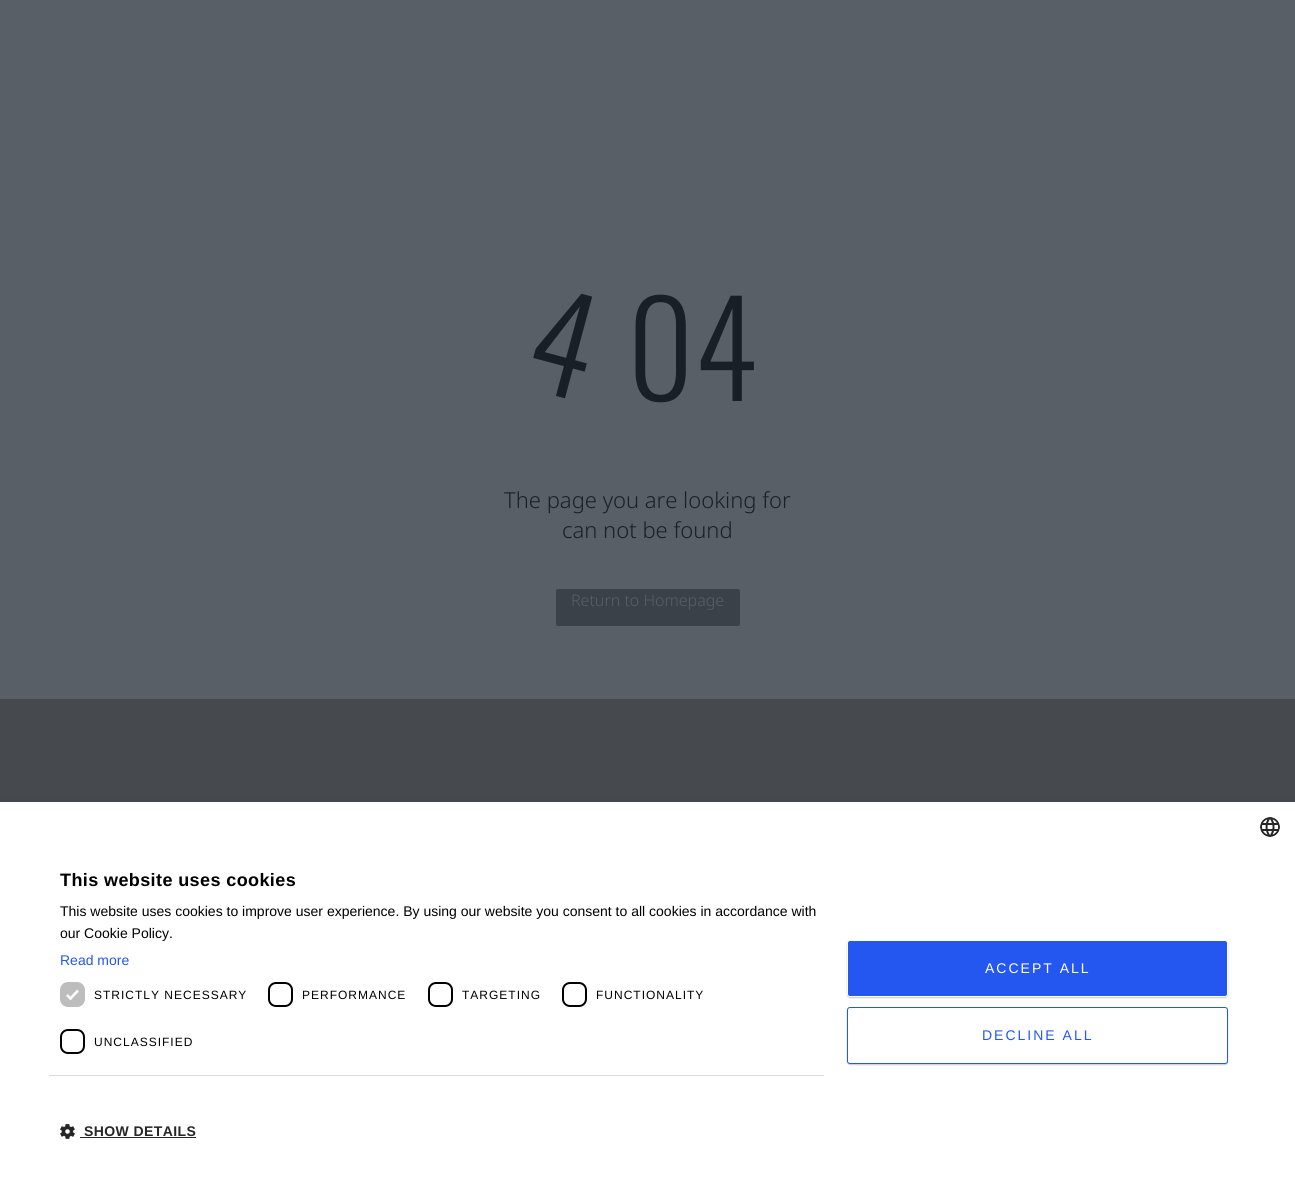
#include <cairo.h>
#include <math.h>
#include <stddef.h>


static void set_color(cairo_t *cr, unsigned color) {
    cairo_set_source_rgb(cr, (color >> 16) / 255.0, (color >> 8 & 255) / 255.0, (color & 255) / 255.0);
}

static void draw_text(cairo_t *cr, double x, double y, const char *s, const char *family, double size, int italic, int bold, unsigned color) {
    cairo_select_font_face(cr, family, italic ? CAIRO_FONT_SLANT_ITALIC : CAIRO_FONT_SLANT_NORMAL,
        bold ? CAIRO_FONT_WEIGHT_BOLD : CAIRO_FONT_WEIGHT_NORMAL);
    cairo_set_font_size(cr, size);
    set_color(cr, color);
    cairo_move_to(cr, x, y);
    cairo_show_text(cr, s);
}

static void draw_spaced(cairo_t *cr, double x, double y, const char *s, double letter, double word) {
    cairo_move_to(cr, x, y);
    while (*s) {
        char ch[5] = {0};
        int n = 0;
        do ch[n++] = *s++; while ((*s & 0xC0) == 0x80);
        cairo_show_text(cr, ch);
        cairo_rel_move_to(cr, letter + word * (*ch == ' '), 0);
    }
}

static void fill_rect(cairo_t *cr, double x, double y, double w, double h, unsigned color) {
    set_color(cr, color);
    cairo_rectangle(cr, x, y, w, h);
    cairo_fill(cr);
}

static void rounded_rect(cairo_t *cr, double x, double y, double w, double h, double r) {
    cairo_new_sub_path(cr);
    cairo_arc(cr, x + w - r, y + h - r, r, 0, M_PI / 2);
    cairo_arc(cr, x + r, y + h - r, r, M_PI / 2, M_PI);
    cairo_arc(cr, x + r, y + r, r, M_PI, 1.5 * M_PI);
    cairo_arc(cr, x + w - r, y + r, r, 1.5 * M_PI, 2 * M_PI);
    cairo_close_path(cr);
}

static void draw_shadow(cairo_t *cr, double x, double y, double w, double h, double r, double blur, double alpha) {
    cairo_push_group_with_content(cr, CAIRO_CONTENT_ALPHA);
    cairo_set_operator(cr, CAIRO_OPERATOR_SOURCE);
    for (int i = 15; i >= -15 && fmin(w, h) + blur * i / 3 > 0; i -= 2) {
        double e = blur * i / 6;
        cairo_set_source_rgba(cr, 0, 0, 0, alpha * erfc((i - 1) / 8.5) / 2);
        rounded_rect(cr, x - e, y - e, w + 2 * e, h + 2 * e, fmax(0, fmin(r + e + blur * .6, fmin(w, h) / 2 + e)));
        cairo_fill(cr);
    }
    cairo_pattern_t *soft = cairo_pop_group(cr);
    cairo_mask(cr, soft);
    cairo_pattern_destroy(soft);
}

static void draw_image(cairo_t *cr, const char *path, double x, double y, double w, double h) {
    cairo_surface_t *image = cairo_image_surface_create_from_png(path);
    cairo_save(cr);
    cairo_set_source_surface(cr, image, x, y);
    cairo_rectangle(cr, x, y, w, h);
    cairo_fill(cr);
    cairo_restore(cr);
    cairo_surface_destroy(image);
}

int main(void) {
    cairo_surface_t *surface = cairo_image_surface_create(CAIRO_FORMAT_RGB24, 1295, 1182);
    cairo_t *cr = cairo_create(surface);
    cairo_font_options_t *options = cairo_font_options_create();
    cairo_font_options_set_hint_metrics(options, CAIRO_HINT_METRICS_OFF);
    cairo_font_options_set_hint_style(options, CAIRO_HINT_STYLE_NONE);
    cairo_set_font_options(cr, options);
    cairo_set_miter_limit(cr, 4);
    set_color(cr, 0x595F67);
    cairo_paint(cr);
    cairo_save(cr);
    cairo_translate(cr, 519, 386);
    cairo_rotate(cr, 15 * M_PI / 180);
    draw_text(cr, 0, 0, "4", "Oswald Light", 130, 0, 0, 0x191F27);
    cairo_restore(cr);
    draw_text(cr, 627, 401, "04", "Oswald Light", 130, 0, 0, 0x191F27);
    draw_text(cr, 504, 508, "The page you are looking for", "Noto Sans Light", 22, 0, 0, 0x191F27);
    draw_text(cr, 562, 538, "can not be found", "Noto Sans Light", 22, 0, 0, 0x191F27);
    set_color(cr, 0x3B4149);
    rounded_rect(cr, 556, 589, 184, 37, 2);
    cairo_fill(cr);
    draw_text(cr, 571, 606, "Return to Homepage", "Noto Sans Light", 16, 0, 0, 0x595F67);
    fill_rect(cr, 0, 699, 1295, 103, 0x464A4F);
    set_color(cr, 0x191F27);
    draw_shadow(cr, 1, 804, 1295, 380, 0, 4, 0.35);
    fill_rect(cr, 0, 802, 1295, 380, 0xFFFFFF);
    draw_image(cr, "assets/img1.png", 1260, 817, 20, 20);
    cairo_select_font_face(cr, "Liberation Sans", CAIRO_FONT_SLANT_NORMAL, CAIRO_FONT_WEIGHT_BOLD);
    cairo_set_font_size(cr, 18);
    set_color(cr, 0x000000);
    draw_spaced(cr, 60, 886, "This website uses cookies", 0.4, 0);
    draw_text(cr, 60, 916, "This website uses cookies to improve user experience. By using our website you consent to all cookies in accordance with", "Liberation Sans", 14, 0, 0, 0x000000);
    draw_text(cr, 60, 938, "our Cookie Policy.", "Liberation Sans", 14, 0, 0, 0x000000);
    draw_text(cr, 60, 965, "Read more", "Liberation Sans", 14, 0, 0, 0x2457F0);
    fill_rect(cr, 49, 1075, 775, 1, 0xD9D9D9);
    set_color(cr, 0xBDBDBD);
    rounded_rect(cr, 60, 982, 25, 25, 8);
    cairo_fill(cr);
    cairo_new_path(cr);
    cairo_move_to(cr, 67, 995);
    cairo_line_to(cr, 70.5, 998.5);
    cairo_line_to(cr, 78, 990.5);
    set_color(cr, 0xFFFFFF);
    cairo_set_line_width(cr, 2.6);
    cairo_stroke(cr);
    cairo_set_font_size(cr, 12);
    set_color(cr, 0x000000);
    draw_spaced(cr, 94, 999, "STRICTLY NECESSARY", 1, 0);
    rounded_rect(cr, 269, 983, 23, 23, 7);
    cairo_set_line_width(cr, 2);
    cairo_stroke(cr);
    draw_spaced(cr, 302, 999, "PERFORMANCE", 1, 0);
    rounded_rect(cr, 429, 983, 23, 23, 7);
    cairo_stroke(cr);
    draw_spaced(cr, 462, 999, "TARGETING", 1, 0);
    rounded_rect(cr, 563, 983, 23, 23, 7);
    cairo_stroke(cr);
    draw_spaced(cr, 596, 999, "FUNCTIONALITY", 1, 0);
    rounded_rect(cr, 61, 1030, 23, 23, 7);
    cairo_stroke(cr);
    draw_spaced(cr, 94, 1046, "UNCLASSIFIED", 1, 0);
    draw_image(cr, "assets/img2.png", 60, 1124, 15, 15);
    cairo_select_font_face(cr, "Liberation Sans", CAIRO_FONT_SLANT_NORMAL, CAIRO_FONT_WEIGHT_BOLD);
    cairo_set_font_size(cr, 14);
    set_color(cr, 0x262626);
    draw_spaced(cr, 84, 1136, "SHOW DETAILS", 0.4, 0);
    fill_rect(cr, 80, 1137, 116, 1, 0x262626);
    set_color(cr, 0x000000);
    draw_shadow(cr, 847, 941, 381, 57, 3, 0.5, 0.2);
    set_color(cr, 0x2457F0);
    rounded_rect(cr, 847.5, 940.5, 380, 56, 2.5);
    cairo_fill_preserve(cr);
    set_color(cr, 0xFFFFFF);
    cairo_set_line_width(cr, 1);
    cairo_stroke(cr);
    cairo_select_font_face(cr, "Liberation Sans", CAIRO_FONT_SLANT_NORMAL, CAIRO_FONT_WEIGHT_NORMAL);
    draw_spaced(cr, 985, 973, "ACCEPT ALL", 2, 0);
    set_color(cr, 0x000000);
    draw_shadow(cr, 847, 1008, 381, 57, 3, 0.5, 0.2);
    set_color(cr, 0xFFFFFF);
    rounded_rect(cr, 847.5, 1007.5, 380, 56, 2.5);
    cairo_fill_preserve(cr);
    set_color(cr, 0x2457F0);
    cairo_stroke(cr);
    draw_spaced(cr, 982, 1040, "DECLINE ALL", 2, 0);
    cairo_surface_write_to_png(surface, "output.png");
    cairo_font_options_destroy(options);
    cairo_destroy(cr);
    cairo_surface_destroy(surface);
    return 0;
}
